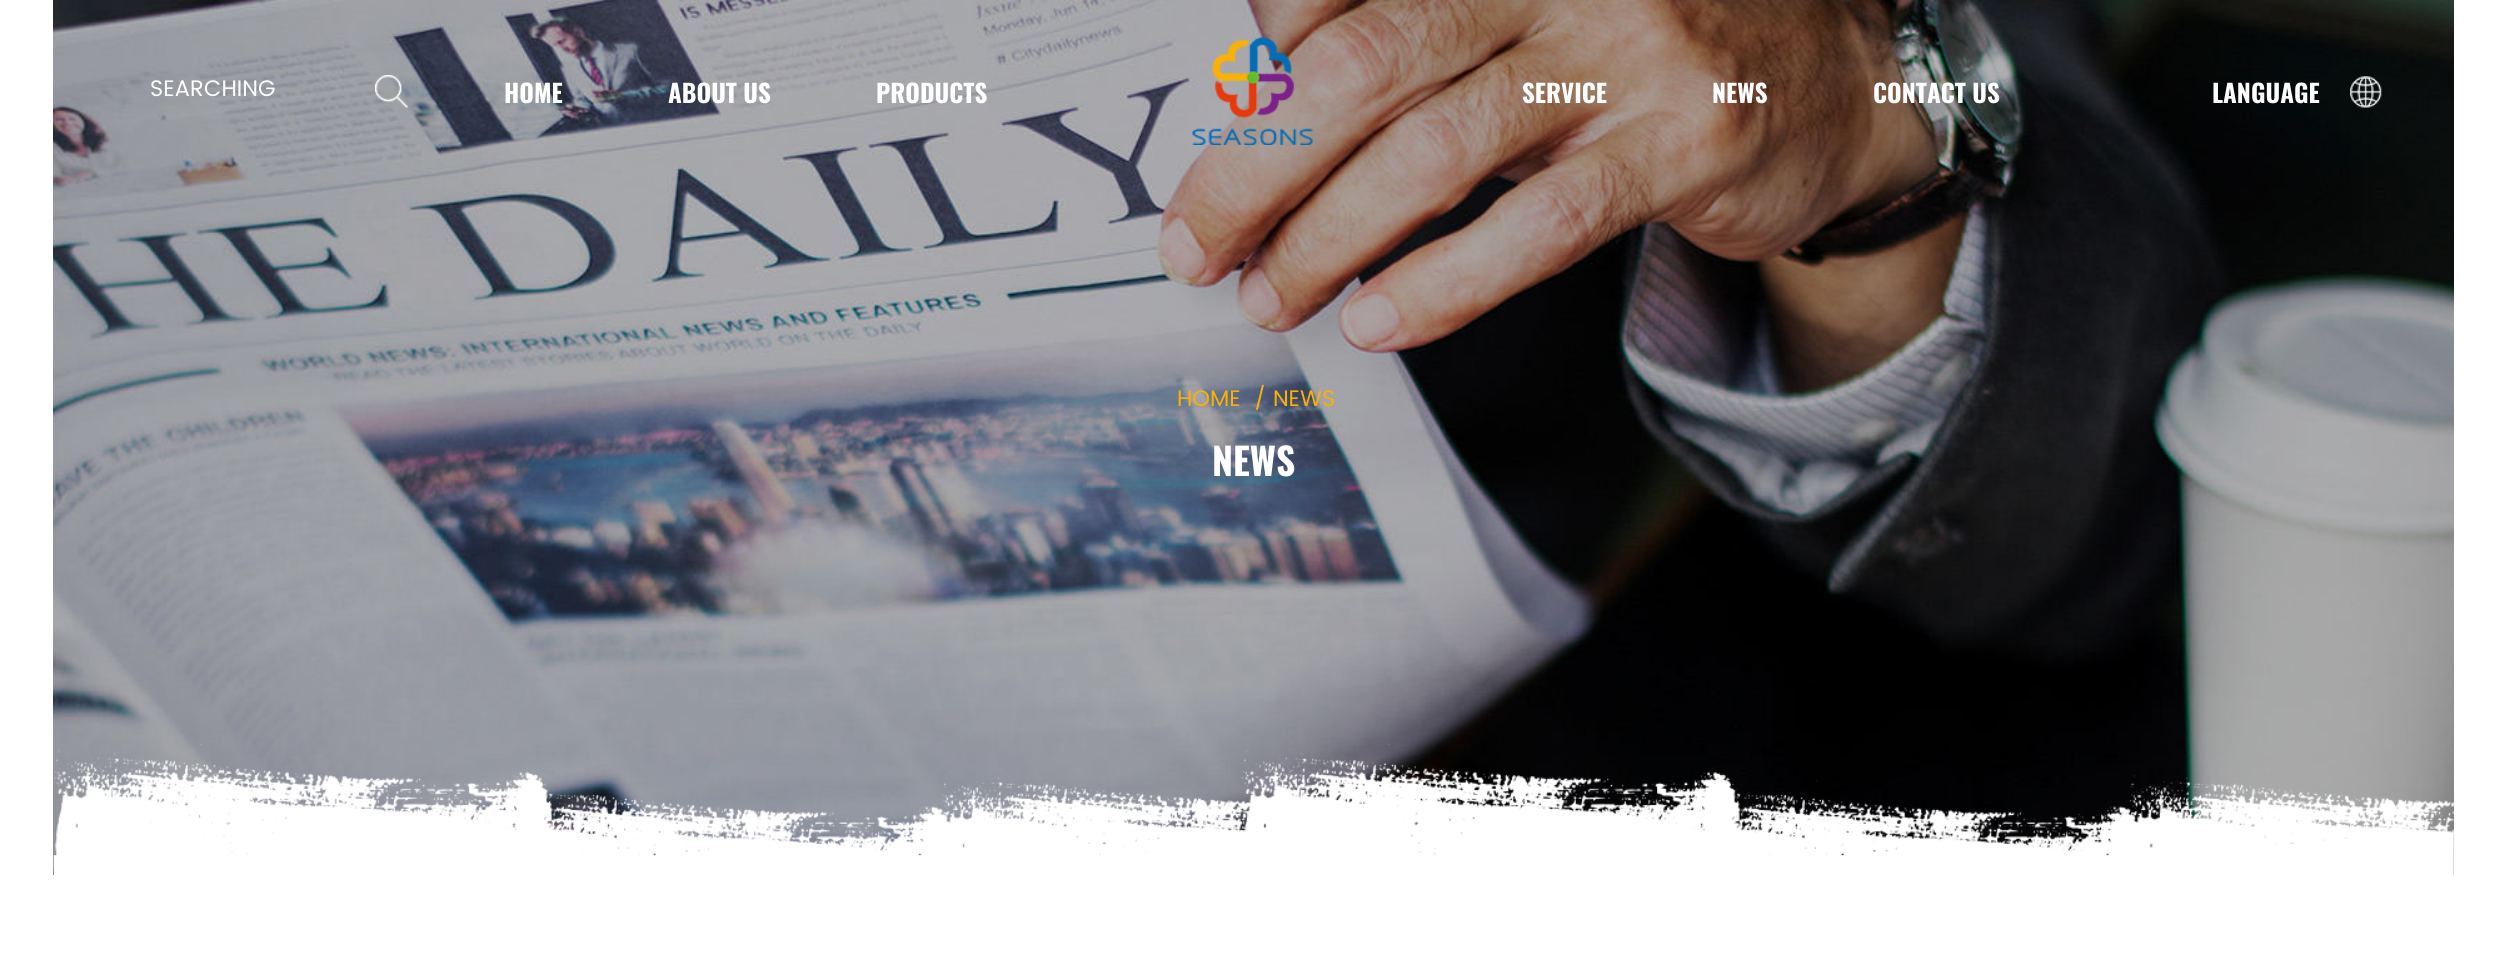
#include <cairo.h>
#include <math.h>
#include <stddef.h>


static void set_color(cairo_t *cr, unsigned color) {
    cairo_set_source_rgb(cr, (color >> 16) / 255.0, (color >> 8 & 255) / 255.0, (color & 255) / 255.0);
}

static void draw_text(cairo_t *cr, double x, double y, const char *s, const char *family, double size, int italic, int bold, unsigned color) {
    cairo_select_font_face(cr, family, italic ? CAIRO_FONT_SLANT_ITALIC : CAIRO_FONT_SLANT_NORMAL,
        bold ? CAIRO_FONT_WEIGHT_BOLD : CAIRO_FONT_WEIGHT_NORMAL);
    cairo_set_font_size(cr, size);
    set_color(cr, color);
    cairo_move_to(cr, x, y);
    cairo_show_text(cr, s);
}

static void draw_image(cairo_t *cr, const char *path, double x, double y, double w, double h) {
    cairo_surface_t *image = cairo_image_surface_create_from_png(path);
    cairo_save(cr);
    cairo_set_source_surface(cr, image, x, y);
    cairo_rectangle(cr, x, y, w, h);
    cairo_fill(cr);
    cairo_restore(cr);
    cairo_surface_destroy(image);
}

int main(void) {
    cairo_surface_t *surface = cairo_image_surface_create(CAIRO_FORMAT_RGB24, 2506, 969);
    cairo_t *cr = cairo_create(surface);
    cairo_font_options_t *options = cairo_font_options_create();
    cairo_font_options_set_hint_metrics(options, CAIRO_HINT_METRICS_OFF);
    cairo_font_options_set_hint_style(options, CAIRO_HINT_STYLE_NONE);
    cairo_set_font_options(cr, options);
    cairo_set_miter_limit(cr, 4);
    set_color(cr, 0xFFFFFF);
    cairo_paint(cr);
    draw_image(cr, "assets/img4.png", 53, 0, 2401, 875);
    draw_text(cr, 150, 96, "SEARCHING", "Poppins", 22.5, 0, 0, 0xFFFFFF);
    draw_image(cr, "assets/img1.png", 375, 75, 33, 33);
    draw_text(cr, 504, 103, "HOME", "Oswald", 25, 0, 1, 0xFFFFFF);
    draw_text(cr, 668, 103, "ABOUT US", "Oswald", 25, 0, 1, 0xFFFFFF);
    draw_text(cr, 876, 103, "PRODUCTS", "Oswald", 25, 0, 1, 0xFFFFFF);
    draw_image(cr, "assets/img2.png", 1192, 37, 121, 108);
    draw_text(cr, 1522, 103, "SERVICE", "Oswald", 25, 0, 1, 0xFFFFFF);
    draw_text(cr, 1712, 103, "NEWS", "Oswald", 25, 0, 1, 0xFFFFFF);
    draw_text(cr, 1873, 103, "CONTACT US", "Oswald", 25, 0, 1, 0xFFFFFF);
    draw_image(cr, "assets/img3.png", 2350, 76, 32, 32);
    draw_text(cr, 2212, 103, "LANGUAGE", "Oswald", 25, 0, 1, 0xFFFFFF);
    draw_text(cr, 1177, 406, "HOME", "Poppins", 22.5, 0, 0, 0xF7B109);
    draw_text(cr, 1254, 406, "/ NEWS", "Poppins", 22.5, 0, 0, 0xF7B109);
    draw_text(cr, 1212, 476, "NEWS", "Oswald", 37.5, 0, 1, 0xFFFFFF);
    draw_image(cr, "assets/img5.png", 53, 743, 2401, 132);
    cairo_surface_write_to_png(surface, "output.png");
    cairo_font_options_destroy(options);
    cairo_destroy(cr);
    cairo_surface_destroy(surface);
    return 0;
}
